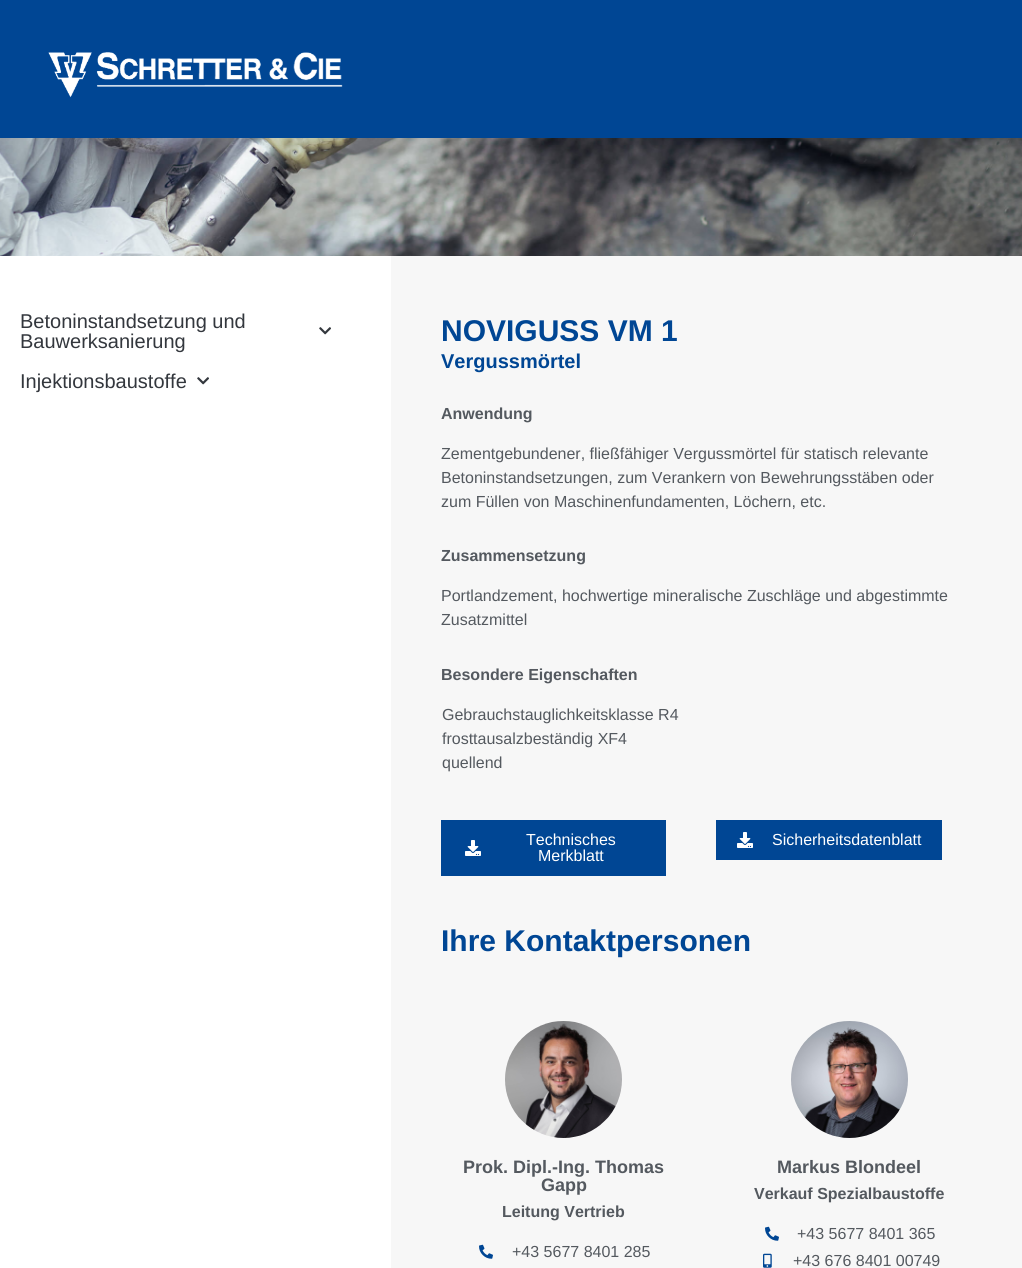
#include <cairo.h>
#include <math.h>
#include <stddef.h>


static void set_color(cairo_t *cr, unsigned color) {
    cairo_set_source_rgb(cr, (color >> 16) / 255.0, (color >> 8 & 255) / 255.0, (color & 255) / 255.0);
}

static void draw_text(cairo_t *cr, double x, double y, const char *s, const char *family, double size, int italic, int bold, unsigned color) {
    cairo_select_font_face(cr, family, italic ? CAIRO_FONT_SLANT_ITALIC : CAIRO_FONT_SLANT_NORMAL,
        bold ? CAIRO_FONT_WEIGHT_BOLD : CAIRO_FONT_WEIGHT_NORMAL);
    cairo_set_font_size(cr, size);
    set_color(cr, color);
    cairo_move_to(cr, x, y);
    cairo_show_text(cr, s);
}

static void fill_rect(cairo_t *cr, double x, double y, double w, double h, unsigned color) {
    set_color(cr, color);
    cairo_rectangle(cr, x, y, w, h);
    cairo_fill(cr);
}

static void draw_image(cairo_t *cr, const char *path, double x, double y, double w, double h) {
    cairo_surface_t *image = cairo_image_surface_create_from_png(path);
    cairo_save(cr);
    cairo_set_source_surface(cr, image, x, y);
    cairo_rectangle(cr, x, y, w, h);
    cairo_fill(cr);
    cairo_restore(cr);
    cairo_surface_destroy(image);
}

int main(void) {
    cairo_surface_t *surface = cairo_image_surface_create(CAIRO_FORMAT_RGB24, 1022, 1268);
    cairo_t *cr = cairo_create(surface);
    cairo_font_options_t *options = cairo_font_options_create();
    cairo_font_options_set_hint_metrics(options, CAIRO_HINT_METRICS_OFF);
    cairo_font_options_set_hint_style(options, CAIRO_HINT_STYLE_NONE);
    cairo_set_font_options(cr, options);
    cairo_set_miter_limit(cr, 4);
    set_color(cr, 0xFFFFFF);
    cairo_paint(cr);
    fill_rect(cr, 0, 0, 1022, 138, 0x004694);
    draw_image(cr, "assets/img1.png", 48, 52, 295, 46);
    draw_image(cr, "assets/img2.png", 0, 138, 1022, 118);
    draw_text(cr, 20, 328, "Betoninstandsetzung und", "Liberation Sans", 20, 0, 0, 0x33373D);
    draw_image(cr, "assets/img3.png", 319, 327, 12, 8);
    draw_text(cr, 20, 348, "Bauwerksanierung", "Liberation Sans", 20, 0, 0, 0x33373D);
    draw_text(cr, 20, 388, "Injektionsbaustoffe", "Liberation Sans", 20, 0, 0, 0x33373D);
    draw_image(cr, "assets/img3.png", 197, 377, 12, 8);
    fill_rect(cr, 391, 256, 631, 1012, 0xF7F7F7);
    draw_text(cr, 441, 341, "NOVIGUSS VM 1", "Liberation Sans", 30, 0, 1, 0x004694);
    draw_text(cr, 441, 368, "Vergussmörtel", "Liberation Sans", 20, 0, 1, 0x004694);
    draw_text(cr, 441, 419, "Anwendung", "Liberation Sans", 16, 0, 1, 0x54595F);
    draw_text(cr, 441, 459, "Zementgebundener, fließfähiger Vergussmörtel für statisch relevante", "Liberation Sans", 16, 0, 0, 0x54595F);
    draw_text(cr, 441, 483, "Betoninstandsetzungen, zum Verankern von Bewehrungsstäben oder", "Liberation Sans", 16, 0, 0, 0x54595F);
    draw_text(cr, 441, 507, "zum Füllen von Maschinenfundamenten, Löchern, etc.", "Liberation Sans", 16, 0, 0, 0x54595F);
    draw_text(cr, 441, 561, "Zusammensetzung", "Liberation Sans", 16, 0, 1, 0x54595F);
    draw_text(cr, 441, 601, "Portlandzement, hochwertige mineralische Zuschläge und abgestimmte", "Liberation Sans", 16, 0, 0, 0x54595F);
    draw_text(cr, 441, 625, "Zusatzmittel", "Liberation Sans", 16, 0, 0, 0x54595F);
    draw_text(cr, 441, 680, "Besondere Eigenschaften", "Liberation Sans", 16, 0, 1, 0x54595F);
    draw_text(cr, 442, 720, "Gebrauchstauglichkeitsklasse R4", "Liberation Sans", 16, 0, 0, 0x54595F);
    draw_text(cr, 442, 744, "frosttausalzbeständig XF4", "Liberation Sans", 16, 0, 0, 0x54595F);
    draw_text(cr, 442, 768, "quellend", "Liberation Sans", 16, 0, 0, 0x54595F);
    fill_rect(cr, 441, 820, 225, 56, 0x004694);
    draw_image(cr, "assets/img4.png", 465, 840, 16, 16);
    draw_text(cr, 526, 845, "Technisches", "Liberation Sans", 16, 0, 0, 0xFFFFFF);
    draw_text(cr, 538, 861, "Merkblatt", "Liberation Sans", 16, 0, 0, 0xFFFFFF);
    fill_rect(cr, 716, 820, 226, 40, 0x004694);
    draw_image(cr, "assets/img4.png", 737, 832, 16, 16);
    draw_text(cr, 772, 845, "Sicherheitsdatenblatt", "Liberation Sans", 16, 0, 0, 0xFFFFFF);
    draw_text(cr, 441, 951, "Ihre Kontaktpersonen", "Liberation Sans", 30, 0, 1, 0x004694);
    draw_image(cr, "assets/img5.png", 505, 1021, 117, 117);
    draw_text(cr, 463, 1173, "Prok. Dipl.-Ing. Thomas", "Liberation Sans", 18, 0, 1, 0x54595F);
    draw_text(cr, 541, 1191, "Gapp", "Liberation Sans", 18, 0, 1, 0x54595F);
    draw_text(cr, 502, 1217, "Leitung Vertrieb", "Liberation Sans", 16, 0, 1, 0x54595F);
    draw_image(cr, "assets/img6.png", 479, 1244, 14, 15);
    draw_text(cr, 512, 1257, "+43 5677 8401 285", "Liberation Sans", 16, 0, 0, 0x54595F);
    draw_image(cr, "assets/img7.png", 791, 1021, 117, 117);
    draw_text(cr, 777, 1173, "Markus Blondeel", "Liberation Sans", 18, 0, 1, 0x54595F);
    draw_text(cr, 754, 1199, "Verkauf Spezialbaustoffe", "Liberation Sans", 16, 0, 1, 0x54595F);
    draw_image(cr, "assets/img6.png", 765, 1226, 14, 15);
    draw_text(cr, 797, 1239, "+43 5677 8401 365", "Liberation Sans", 16, 0, 0, 0x54595F);
    draw_image(cr, "assets/img8.png", 763, 1253, 9, 15);
    draw_text(cr, 793, 1266, "+43 676 8401 00749", "Liberation Sans", 16, 0, 0, 0x54595F);
    cairo_surface_write_to_png(surface, "output.png");
    cairo_font_options_destroy(options);
    cairo_destroy(cr);
    cairo_surface_destroy(surface);
    return 0;
}
